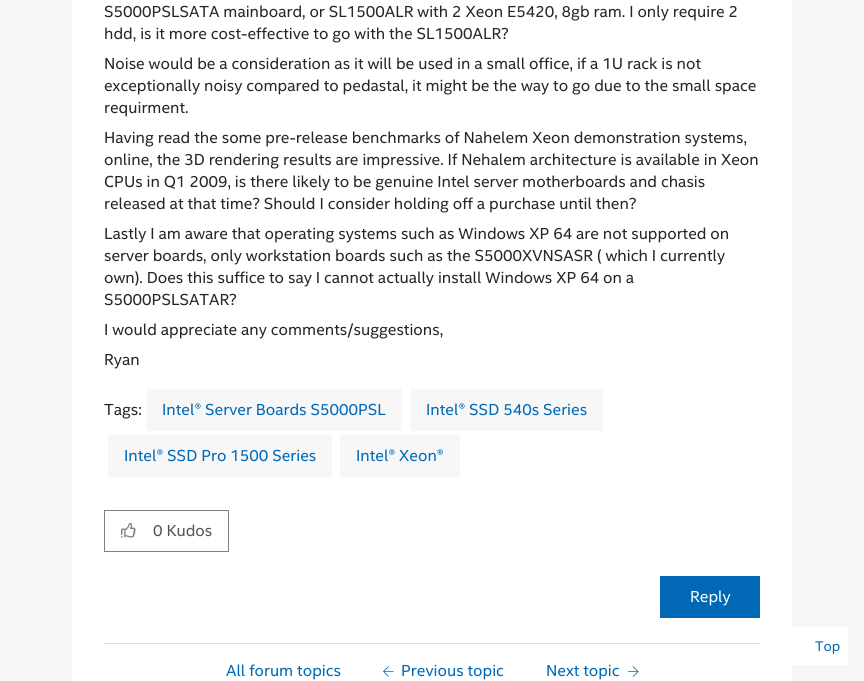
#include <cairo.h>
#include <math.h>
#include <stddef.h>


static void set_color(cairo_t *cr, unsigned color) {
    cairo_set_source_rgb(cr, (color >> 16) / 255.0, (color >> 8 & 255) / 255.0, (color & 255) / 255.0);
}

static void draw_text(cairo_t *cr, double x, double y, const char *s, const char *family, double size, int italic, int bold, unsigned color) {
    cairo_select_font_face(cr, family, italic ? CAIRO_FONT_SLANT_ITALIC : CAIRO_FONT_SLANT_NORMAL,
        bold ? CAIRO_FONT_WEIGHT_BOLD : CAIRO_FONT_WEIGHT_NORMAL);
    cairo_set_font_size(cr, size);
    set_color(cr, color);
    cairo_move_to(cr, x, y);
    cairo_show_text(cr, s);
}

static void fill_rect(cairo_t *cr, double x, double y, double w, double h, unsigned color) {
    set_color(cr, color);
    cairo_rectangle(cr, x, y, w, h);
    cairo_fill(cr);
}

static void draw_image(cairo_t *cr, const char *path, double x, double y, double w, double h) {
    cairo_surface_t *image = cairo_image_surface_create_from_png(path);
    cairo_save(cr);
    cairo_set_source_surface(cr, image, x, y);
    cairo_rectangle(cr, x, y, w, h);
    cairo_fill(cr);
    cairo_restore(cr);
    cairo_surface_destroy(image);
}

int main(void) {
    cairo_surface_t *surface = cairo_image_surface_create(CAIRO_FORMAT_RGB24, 864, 681);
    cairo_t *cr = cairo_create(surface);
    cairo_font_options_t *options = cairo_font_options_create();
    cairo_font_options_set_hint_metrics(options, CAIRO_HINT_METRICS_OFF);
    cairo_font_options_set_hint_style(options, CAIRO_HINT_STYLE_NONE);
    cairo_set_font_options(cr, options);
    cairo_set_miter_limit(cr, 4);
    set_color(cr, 0xF7F7F7);
    cairo_paint(cr);
    fill_rect(cr, 72, 0, 720, 681, 0xFFFFFF);
    draw_text(cr, 104, 17, "S5000PSLSATA mainboard, or SL1500ALR with 2 Xeon E5420, 8gb ram. I only require 2", "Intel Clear", 16, 0, 0, 0x262626);
    draw_text(cr, 104, 39, "hdd, is it more cost-effective to go with the SL1500ALR?", "Intel Clear", 16, 0, 0, 0x262626);
    draw_text(cr, 104, 69, "Noise would be a consideration as it will be used in a small office, if a 1U rack is not", "Intel Clear", 16, 0, 0, 0x262626);
    draw_text(cr, 104, 91, "exceptionally noisy compared to pedastal, it might be the way to go due to the small space", "Intel Clear", 16, 0, 0, 0x262626);
    draw_text(cr, 104, 113, "requirment.", "Intel Clear", 16, 0, 0, 0x262626);
    draw_text(cr, 104, 143, "Having read the some pre-release benchmarks of Nahelem Xeon demonstration systems,", "Intel Clear", 16, 0, 0, 0x262626);
    draw_text(cr, 104, 165, "online, the 3D rendering results are impressive. If Nehalem architecture is available in Xeon", "Intel Clear", 16, 0, 0, 0x262626);
    draw_text(cr, 104, 187, "CPUs in Q1 2009, is there likely to be genuine Intel server motherboards and chasis", "Intel Clear", 16, 0, 0, 0x262626);
    draw_text(cr, 104, 209, "released at that time? Should I consider holding off a purchase until then?", "Intel Clear", 16, 0, 0, 0x262626);
    draw_text(cr, 104, 239, "Lastly I am aware that operating systems such as Windows XP 64 are not supported on", "Intel Clear", 16, 0, 0, 0x262626);
    draw_text(cr, 104, 261, "server boards, only workstation boards such as the S5000XVNSASR ( which I currently", "Intel Clear", 16, 0, 0, 0x262626);
    draw_text(cr, 104, 283, "own). Does this suffice to say I cannot actually install Windows XP 64 on a", "Intel Clear", 16, 0, 0, 0x262626);
    draw_text(cr, 104, 305, "S5000PSLSATAR?", "Intel Clear", 16, 0, 0, 0x262626);
    draw_text(cr, 104, 335, "I would appreciate any comments/suggestions,", "Intel Clear", 16, 0, 0, 0x262626);
    draw_text(cr, 104, 365, "Ryan", "Intel Clear", 16, 0, 0, 0x262626);
    draw_text(cr, 104, 415, "Tags:", "Intel Clear", 16, 0, 0, 0x262626);
    fill_rect(cr, 146, 389, 256, 42, 0xF7F7F7);
    draw_text(cr, 162, 415, "Intel® Server Boards S5000PSL", "Intel Clear", 16, 0, 0, 0x0068B5);
    fill_rect(cr, 410, 389, 193, 42, 0xF7F7F7);
    draw_text(cr, 426, 415, "Intel® SSD 540s Series", "Intel Clear", 16, 0, 0, 0x0068B5);
    fill_rect(cr, 108, 435, 224, 42, 0xF7F7F7);
    draw_text(cr, 124, 461, "Intel® SSD Pro 1500 Series", "Intel Clear", 16, 0, 0, 0x0068B5);
    fill_rect(cr, 340, 435, 120, 42, 0xF7F7F7);
    draw_text(cr, 356, 461, "Intel® Xeon®", "Intel Clear", 16, 0, 0, 0x0068B5);
    cairo_rectangle(cr, 104.5, 510.5, 124, 41);
    set_color(cr, 0x808080);
    cairo_set_line_width(cr, 1);
    cairo_stroke(cr);
    draw_image(cr, "assets/img1.png", 121, 523, 15, 15);
    draw_text(cr, 153, 536, "0 Kudos", "Intel Clear", 16, 0, 0, 0x555555);
    fill_rect(cr, 660, 576, 100, 42, 0x0068B5);
    draw_text(cr, 690, 602, "Reply", "Intel Clear", 16, 0, 0, 0xFFFFFF);
    fill_rect(cr, 104, 643, 656, 1, 0xE0E0E0);
    draw_text(cr, 226, 676, "All forum topics", "Intel Clear", 16, 0, 0, 0x0068B5);
    draw_image(cr, "assets/img2.png", 383, 666, 11, 11);
    draw_text(cr, 401, 676, "Previous topic", "Intel Clear", 16, 0, 0, 0x0068B5);
    draw_text(cr, 546, 676, "Next topic", "Intel Clear", 16, 0, 0, 0x0068B5);
    draw_image(cr, "assets/img3.png", 628, 666, 11, 11);
    fill_rect(cr, 792, 627, 56, 38, 0xFFFFFF);
    draw_text(cr, 815, 651, "Top", "Intel Clear", 14, 0, 0, 0x0068B5);
    cairo_surface_write_to_png(surface, "output.png");
    cairo_font_options_destroy(options);
    cairo_destroy(cr);
    cairo_surface_destroy(surface);
    return 0;
}
